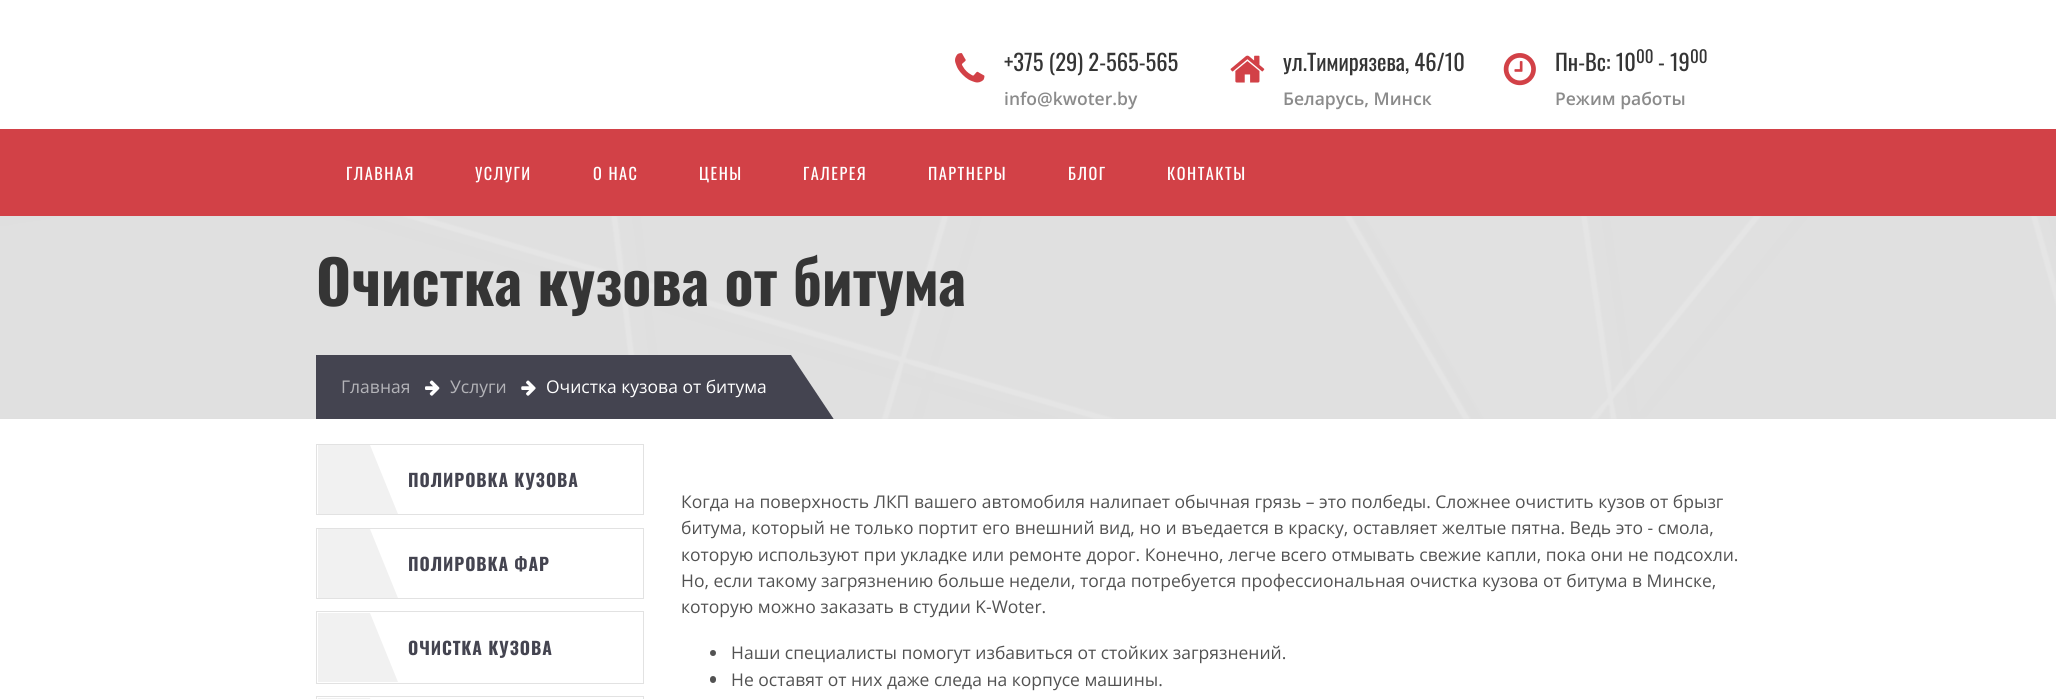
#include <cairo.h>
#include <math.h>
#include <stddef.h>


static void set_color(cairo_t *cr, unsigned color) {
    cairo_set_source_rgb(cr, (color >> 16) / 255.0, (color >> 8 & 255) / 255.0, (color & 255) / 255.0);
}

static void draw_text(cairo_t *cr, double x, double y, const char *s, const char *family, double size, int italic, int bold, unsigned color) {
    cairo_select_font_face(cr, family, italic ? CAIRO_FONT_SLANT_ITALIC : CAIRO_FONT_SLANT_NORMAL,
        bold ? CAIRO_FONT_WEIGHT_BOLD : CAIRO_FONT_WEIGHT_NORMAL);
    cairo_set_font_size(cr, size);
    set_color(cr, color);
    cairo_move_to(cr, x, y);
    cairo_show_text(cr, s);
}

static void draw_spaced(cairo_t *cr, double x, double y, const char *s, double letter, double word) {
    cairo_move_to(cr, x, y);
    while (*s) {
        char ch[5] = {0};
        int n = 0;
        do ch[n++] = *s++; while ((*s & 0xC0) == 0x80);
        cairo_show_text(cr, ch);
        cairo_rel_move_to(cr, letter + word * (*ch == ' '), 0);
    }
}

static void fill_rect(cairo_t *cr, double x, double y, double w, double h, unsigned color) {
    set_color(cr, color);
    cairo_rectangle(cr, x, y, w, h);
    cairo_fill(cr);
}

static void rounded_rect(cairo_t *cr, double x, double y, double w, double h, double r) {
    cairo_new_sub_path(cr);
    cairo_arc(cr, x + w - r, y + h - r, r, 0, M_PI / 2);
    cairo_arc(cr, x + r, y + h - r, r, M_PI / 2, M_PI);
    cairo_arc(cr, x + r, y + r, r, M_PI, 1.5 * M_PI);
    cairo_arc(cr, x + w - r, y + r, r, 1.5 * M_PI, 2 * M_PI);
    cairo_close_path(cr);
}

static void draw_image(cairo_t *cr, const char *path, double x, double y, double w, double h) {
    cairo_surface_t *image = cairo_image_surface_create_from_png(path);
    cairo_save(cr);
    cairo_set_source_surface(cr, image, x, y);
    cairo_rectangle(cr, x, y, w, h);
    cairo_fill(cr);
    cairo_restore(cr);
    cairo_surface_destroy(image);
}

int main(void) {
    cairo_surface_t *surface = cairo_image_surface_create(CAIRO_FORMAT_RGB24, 2056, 699);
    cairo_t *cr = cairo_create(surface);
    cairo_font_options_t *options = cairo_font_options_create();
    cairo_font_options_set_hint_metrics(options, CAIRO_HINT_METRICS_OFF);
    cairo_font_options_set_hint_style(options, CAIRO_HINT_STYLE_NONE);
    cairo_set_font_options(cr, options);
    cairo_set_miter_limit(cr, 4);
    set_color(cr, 0xFFFFFF);
    cairo_paint(cr);
    draw_image(cr, "assets/img1.png", 955, 53, 30, 30);
    draw_text(cr, 1004, 71, "+375 (29) 2-565-565", "Oswald", 22.5, 0, 0, 0x353535);
    draw_text(cr, 1004, 105, "info@kwoter.by", "Open Sans SemiBold", 17.5, 0, 0, 0x8B8B8B);
    draw_image(cr, "assets/img2.png", 1230, 55, 35, 28);
    draw_text(cr, 1283, 71, "ул.Тимирязева, 46/10", "Oswald", 22.5, 0, 0, 0x353535);
    draw_text(cr, 1283, 105, "Беларусь, Минск", "Open Sans SemiBold", 17.5, 0, 0, 0x8B8B8B);
    draw_image(cr, "assets/img3.png", 1503, 53, 33, 33);
    draw_text(cr, 1555, 71, "Пн-Вс: 10", "Oswald", 22.5, 0, 0, 0x353535);
    draw_text(cr, 1636, 63, "00", "Oswald", 17, 0, 0, 0x353535);
    draw_text(cr, 1658, 71, "- 19", "Oswald", 22.5, 0, 0, 0x353535);
    draw_text(cr, 1690, 63, "00", "Oswald", 17, 0, 0, 0x353535);
    draw_text(cr, 1555, 105, "Режим работы", "Open Sans SemiBold", 17.5, 0, 0, 0x8B8B8B);
    fill_rect(cr, 0, 129, 2056, 87, 0xD24147);
    cairo_select_font_face(cr, "Oswald", CAIRO_FONT_SLANT_NORMAL, CAIRO_FONT_WEIGHT_NORMAL);
    cairo_set_font_size(cr, 16.25);
    set_color(cr, 0xFFFFFF);
    draw_spaced(cr, 346, 180, "ГЛАВНАЯ", 1.5, 0);
    draw_spaced(cr, 475, 180, "УСЛУГИ", 1.5, 0);
    draw_spaced(cr, 593, 180, "О НАС", 1.5, 0);
    draw_spaced(cr, 699, 180, "ЦЕНЫ", 1.5, 0);
    draw_spaced(cr, 803, 180, "ГАЛЕРЕЯ", 1.5, 0);
    draw_spaced(cr, 928, 180, "ПАРТНЕРЫ", 1.5, 0);
    draw_spaced(cr, 1068, 180, "БЛОГ", 1.5, 0);
    draw_spaced(cr, 1167, 180, "КОНТАКТЫ", 1.5, 0);
    fill_rect(cr, 0, 216, 2056, 203, 0xE0E0E0);
    draw_image(cr, "assets/img4.png", 0, 216, 2056, 203);
    draw_text(cr, 316, 306, "Очистка кузова от битума", "Oswald", 60, 0, 1, 0x353535);
    fill_rect(cr, 316, 355, 475, 64, 0x444450);
    draw_text(cr, 341, 393, "Главная", "Open Sans", 17.5, 0, 0, 0xB3B3B8);
    draw_image(cr, "assets/img5.png", 425, 380, 15, 16);
    draw_text(cr, 450, 393, "Услуги", "Open Sans", 17.5, 0, 0, 0xB3B3B8);
    draw_image(cr, "assets/img6.png", 521, 380, 15, 16);
    draw_text(cr, 546, 393, "Очистка кузова от битума", "Open Sans", 17.5, 0, 0, 0xFFFFFF);
    cairo_save(cr);
    cairo_rectangle(cr, 0, 216, 2056, 203);
    cairo_clip(cr);
    set_color(cr, 0x444450);
    cairo_new_path(cr);
    cairo_move_to(cr, 791, 430);
    cairo_line_to(cr, 791, 355);
    cairo_line_to(cr, 841, 430);
    cairo_close_path(cr);
    cairo_fill(cr);
    cairo_restore(cr);
    cairo_rectangle(cr, 316.5, 444.5, 327, 70);
    set_color(cr, 0xE2E2E2);
    cairo_set_line_width(cr, 1);
    cairo_stroke(cr);
    set_color(cr, 0xF1F1F1);
    cairo_new_path(cr);
    cairo_move_to(cr, 318, 445);
    cairo_line_to(cr, 370, 445);
    cairo_line_to(cr, 398, 514);
    cairo_line_to(cr, 318, 514);
    cairo_close_path(cr);
    cairo_fill(cr);
    cairo_select_font_face(cr, "Oswald", CAIRO_FONT_SLANT_NORMAL, CAIRO_FONT_WEIGHT_BOLD);
    set_color(cr, 0x444450);
    draw_spaced(cr, 408, 487, "ПОЛИРОВКА КУЗОВА", 0.9, 0);
    cairo_rectangle(cr, 316.5, 528.5, 327, 70);
    set_color(cr, 0xE2E2E2);
    cairo_stroke(cr);
    set_color(cr, 0xF1F1F1);
    cairo_new_path(cr);
    cairo_move_to(cr, 318, 529);
    cairo_line_to(cr, 370, 529);
    cairo_line_to(cr, 398, 598);
    cairo_line_to(cr, 318, 598);
    cairo_close_path(cr);
    cairo_fill(cr);
    set_color(cr, 0x444450);
    draw_spaced(cr, 408, 571, "ПОЛИРОВКА ФАР", 0.9, 0);
    cairo_rectangle(cr, 316.5, 611.5, 327, 72);
    set_color(cr, 0xE2E2E2);
    cairo_stroke(cr);
    set_color(cr, 0xF1F1F1);
    cairo_new_path(cr);
    cairo_move_to(cr, 318, 613);
    cairo_line_to(cr, 370, 613);
    cairo_line_to(cr, 398, 682);
    cairo_line_to(cr, 318, 682);
    cairo_close_path(cr);
    cairo_fill(cr);
    set_color(cr, 0x444450);
    draw_spaced(cr, 408, 655, "ОЧИСТКА КУЗОВА", 0.9, 0);
    cairo_rectangle(cr, 316.5, 696.5, 327, 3);
    set_color(cr, 0xE2E2E2);
    cairo_stroke(cr);
    set_color(cr, 0xF1F1F1);
    cairo_new_path(cr);
    cairo_move_to(cr, 318, 698);
    cairo_line_to(cr, 370, 698);
    cairo_line_to(cr, 398, 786);
    cairo_line_to(cr, 318, 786);
    cairo_close_path(cr);
    cairo_fill(cr);
    draw_text(cr, 681, 508, "Когда на поверхность ЛКП вашего автомобиля налипает обычная грязь – это полбеды. Сложнее очистить кузов от брызг", "Open Sans", 17.5, 0, 0, 0x525252);
    draw_text(cr, 681, 534, "битума, который не только портит его внешний вид, но и въедается в краску, оставляет желтые пятна. Ведь это - смола,", "Open Sans", 17.5, 0, 0, 0x525252);
    draw_text(cr, 681, 561, "которую используют при укладке или ремонте дорог. Конечно, легче всего отмывать свежие капли, пока они не подсохли.", "Open Sans", 17.5, 0, 0, 0x525252);
    draw_text(cr, 681, 587, "Но, если такому загрязнению больше недели, тогда потребуется профессиональная очистка кузова от битума в Минске,", "Open Sans", 17.5, 0, 0, 0x525252);
    draw_text(cr, 681, 613, "которую можно заказать в студии K-Woter.", "Open Sans", 17.5, 0, 0, 0x525252);
    cairo_new_path(cr);
    cairo_arc(cr, 713, 653, 3, 0, 2 * M_PI);
    cairo_fill(cr);
    draw_text(cr, 731, 659, "Наши специалисты помогут избавиться от стойких загрязнений.", "Open Sans", 17.5, 0, 0, 0x525252);
    rounded_rect(cr, 710, 676, 6, 7, 3);
    cairo_fill(cr);
    draw_text(cr, 731, 686, "Не оставят от них даже следа на корпусе машины.", "Open Sans", 17.5, 0, 0, 0x525252);
    cairo_surface_write_to_png(surface, "output.png");
    cairo_font_options_destroy(options);
    cairo_destroy(cr);
    cairo_surface_destroy(surface);
    return 0;
}
